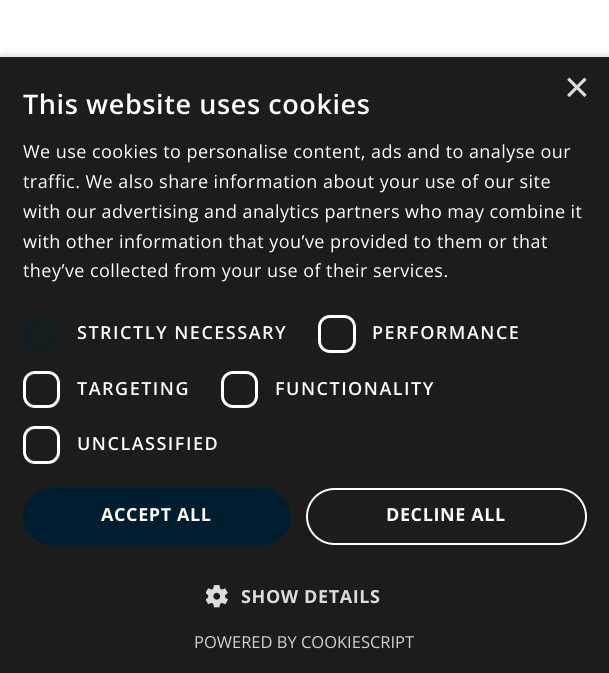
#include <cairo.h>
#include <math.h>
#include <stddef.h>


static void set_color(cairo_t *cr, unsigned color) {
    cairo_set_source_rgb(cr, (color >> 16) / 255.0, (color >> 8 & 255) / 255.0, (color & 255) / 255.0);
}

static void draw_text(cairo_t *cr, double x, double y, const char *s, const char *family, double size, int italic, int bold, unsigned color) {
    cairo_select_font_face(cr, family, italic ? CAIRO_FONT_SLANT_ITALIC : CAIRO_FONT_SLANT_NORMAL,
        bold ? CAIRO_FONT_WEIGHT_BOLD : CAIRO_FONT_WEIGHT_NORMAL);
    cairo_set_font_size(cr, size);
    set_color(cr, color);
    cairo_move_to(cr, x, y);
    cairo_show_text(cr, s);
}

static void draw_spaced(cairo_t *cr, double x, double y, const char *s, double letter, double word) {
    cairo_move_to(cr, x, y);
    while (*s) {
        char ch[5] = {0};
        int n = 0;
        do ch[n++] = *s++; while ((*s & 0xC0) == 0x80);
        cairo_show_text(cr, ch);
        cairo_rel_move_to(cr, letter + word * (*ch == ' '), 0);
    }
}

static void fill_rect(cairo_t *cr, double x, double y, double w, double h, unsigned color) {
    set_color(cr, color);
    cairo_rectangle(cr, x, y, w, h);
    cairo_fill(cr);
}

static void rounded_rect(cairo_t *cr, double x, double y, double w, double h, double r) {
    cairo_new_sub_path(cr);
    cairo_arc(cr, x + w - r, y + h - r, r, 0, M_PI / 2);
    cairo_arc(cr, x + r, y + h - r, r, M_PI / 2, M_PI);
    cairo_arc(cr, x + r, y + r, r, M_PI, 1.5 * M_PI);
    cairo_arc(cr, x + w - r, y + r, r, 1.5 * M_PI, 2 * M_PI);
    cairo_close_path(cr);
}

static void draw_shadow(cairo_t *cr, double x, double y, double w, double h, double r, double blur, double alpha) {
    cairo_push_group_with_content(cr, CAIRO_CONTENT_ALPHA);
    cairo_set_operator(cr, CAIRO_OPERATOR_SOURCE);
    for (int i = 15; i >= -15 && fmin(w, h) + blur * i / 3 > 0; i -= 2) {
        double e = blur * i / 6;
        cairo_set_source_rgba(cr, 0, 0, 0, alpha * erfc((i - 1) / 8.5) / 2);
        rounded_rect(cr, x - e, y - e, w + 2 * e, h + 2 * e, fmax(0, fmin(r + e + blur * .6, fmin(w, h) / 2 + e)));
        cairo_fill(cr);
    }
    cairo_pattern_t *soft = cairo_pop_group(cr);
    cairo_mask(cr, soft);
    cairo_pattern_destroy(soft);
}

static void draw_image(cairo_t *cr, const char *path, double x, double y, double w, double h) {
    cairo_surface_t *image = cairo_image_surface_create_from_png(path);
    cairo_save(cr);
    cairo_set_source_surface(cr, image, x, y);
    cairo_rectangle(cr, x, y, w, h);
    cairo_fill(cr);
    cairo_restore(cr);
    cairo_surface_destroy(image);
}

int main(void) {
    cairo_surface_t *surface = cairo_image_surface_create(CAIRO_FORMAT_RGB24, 609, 673);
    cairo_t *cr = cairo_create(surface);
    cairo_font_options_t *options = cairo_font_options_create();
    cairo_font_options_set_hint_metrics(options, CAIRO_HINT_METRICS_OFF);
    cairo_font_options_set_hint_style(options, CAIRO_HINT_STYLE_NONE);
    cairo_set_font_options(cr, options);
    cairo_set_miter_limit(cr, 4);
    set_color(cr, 0xFFFFFF);
    cairo_paint(cr);
    set_color(cr, 0x000000);
    draw_shadow(cr, 2, 60, 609, 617, 0, 6, 0.35);
    fill_rect(cr, 0, 57, 609, 616, 0x1C1C1C);
    draw_text(cr, 564, 102, "×", "Liberation Sans", 44, 0, 0, 0xDDDDDD);
    cairo_select_font_face(cr, "Open Sans SemiBold", CAIRO_FONT_SLANT_NORMAL, CAIRO_FONT_WEIGHT_NORMAL);
    cairo_set_font_size(cr, 27);
    set_color(cr, 0xFFFFFF);
    draw_spaced(cr, 23, 114, "This website uses cookies", 0.6, 0);
    cairo_select_font_face(cr, "Open Sans", CAIRO_FONT_SLANT_NORMAL, CAIRO_FONT_WEIGHT_NORMAL);
    cairo_set_font_size(cr, 18);
    draw_spaced(cr, 23, 158, "We use cookies to personalise content, ads and to analyse our", 0.45, 0);
    draw_spaced(cr, 23, 188, "traffic. We also share information about your use of our site", 0.45, 0);
    draw_spaced(cr, 23, 218, "with our advertising and analytics partners who may combine it", 0.45, 0);
    draw_spaced(cr, 23, 248, "with other information that you’ve provided to them or that", 0.45, 0);
    draw_spaced(cr, 23, 277, "they’ve collected from your use of their services.", 0.45, 0);
    set_color(cr, 0x151D21);
    rounded_rect(cr, 23, 315, 37, 38, 12);
    cairo_fill(cr);
    cairo_new_path(cr);
    cairo_move_to(cr, 33, 334.5);
    cairo_line_to(cr, 38, 339.5);
    cairo_line_to(cr, 49.5, 328);
    set_color(cr, 0x1C1C1C);
    cairo_set_line_width(cr, 3.9);
    cairo_stroke(cr);
    cairo_select_font_face(cr, "Open Sans SemiBold", CAIRO_FONT_SLANT_NORMAL, CAIRO_FONT_WEIGHT_NORMAL);
    set_color(cr, 0xFFFFFF);
    draw_spaced(cr, 77, 339, "STRICTLY NECESSARY", 1.5, 0);
    rounded_rect(cr, 319.5, 316.5, 35, 35, 10.5);
    cairo_set_line_width(cr, 3);
    cairo_stroke(cr);
    draw_spaced(cr, 372, 339, "PERFORMANCE", 1.5, 0);
    rounded_rect(cr, 24.5, 372.5, 34, 34, 10.5);
    cairo_stroke(cr);
    draw_spaced(cr, 77, 395, "TARGETING", 1.5, 0);
    rounded_rect(cr, 222.5, 372.5, 34, 34, 10.5);
    cairo_stroke(cr);
    draw_spaced(cr, 275, 395, "FUNCTIONALITY", 1.5, 0);
    rounded_rect(cr, 24.5, 427.5, 34, 35, 10.5);
    cairo_stroke(cr);
    draw_spaced(cr, 77, 450, "UNCLASSIFIED", 1.5, 0);
    set_color(cr, 0x001E30);
    rounded_rect(cr, 23, 488, 268, 57, 28.5);
    cairo_fill(cr);
    cairo_select_font_face(cr, "Open Sans", CAIRO_FONT_SLANT_NORMAL, CAIRO_FONT_WEIGHT_BOLD);
    set_color(cr, 0xFFFFFF);
    draw_spaced(cr, 101, 521, "ACCEPT ALL", 0.6, 0);
    rounded_rect(cr, 307, 489, 279, 55, 27.5);
    cairo_set_line_width(cr, 2);
    cairo_stroke(cr);
    draw_spaced(cr, 386, 521, "DECLINE ALL", 0.6, 0);
    draw_image(cr, "assets/img1.png", 206, 585, 22, 23);
    set_color(cr, 0xDDDDDD);
    draw_spaced(cr, 241, 603, "SHOW DETAILS", 0.6, 0);
    draw_text(cr, 194, 648, "POWERED BY COOKIESCRIPT", "Open Sans", 16.5, 0, 0, 0xD2D2D2);
    cairo_surface_write_to_png(surface, "output.png");
    cairo_font_options_destroy(options);
    cairo_destroy(cr);
    cairo_surface_destroy(surface);
    return 0;
}
